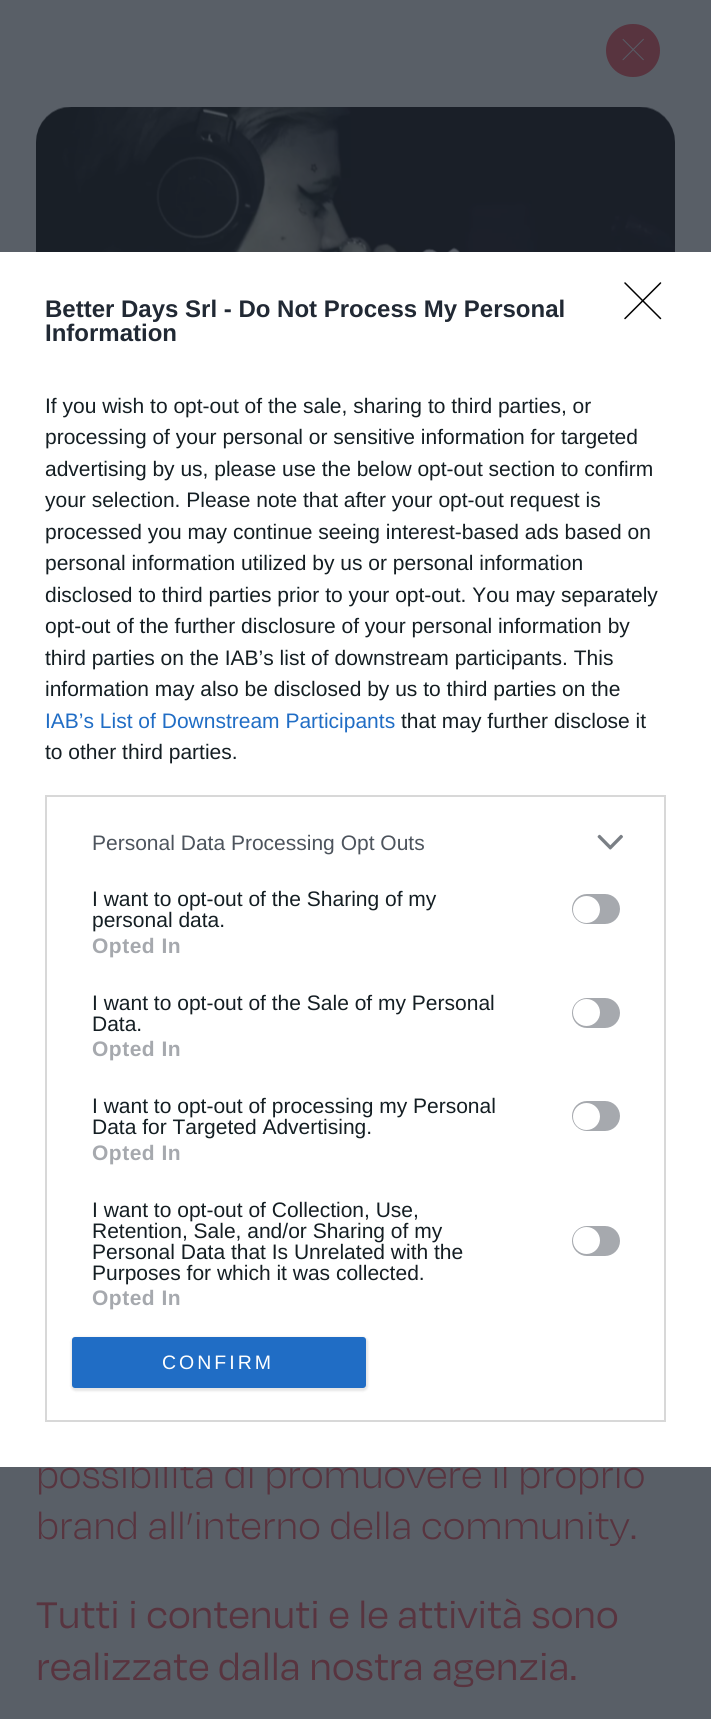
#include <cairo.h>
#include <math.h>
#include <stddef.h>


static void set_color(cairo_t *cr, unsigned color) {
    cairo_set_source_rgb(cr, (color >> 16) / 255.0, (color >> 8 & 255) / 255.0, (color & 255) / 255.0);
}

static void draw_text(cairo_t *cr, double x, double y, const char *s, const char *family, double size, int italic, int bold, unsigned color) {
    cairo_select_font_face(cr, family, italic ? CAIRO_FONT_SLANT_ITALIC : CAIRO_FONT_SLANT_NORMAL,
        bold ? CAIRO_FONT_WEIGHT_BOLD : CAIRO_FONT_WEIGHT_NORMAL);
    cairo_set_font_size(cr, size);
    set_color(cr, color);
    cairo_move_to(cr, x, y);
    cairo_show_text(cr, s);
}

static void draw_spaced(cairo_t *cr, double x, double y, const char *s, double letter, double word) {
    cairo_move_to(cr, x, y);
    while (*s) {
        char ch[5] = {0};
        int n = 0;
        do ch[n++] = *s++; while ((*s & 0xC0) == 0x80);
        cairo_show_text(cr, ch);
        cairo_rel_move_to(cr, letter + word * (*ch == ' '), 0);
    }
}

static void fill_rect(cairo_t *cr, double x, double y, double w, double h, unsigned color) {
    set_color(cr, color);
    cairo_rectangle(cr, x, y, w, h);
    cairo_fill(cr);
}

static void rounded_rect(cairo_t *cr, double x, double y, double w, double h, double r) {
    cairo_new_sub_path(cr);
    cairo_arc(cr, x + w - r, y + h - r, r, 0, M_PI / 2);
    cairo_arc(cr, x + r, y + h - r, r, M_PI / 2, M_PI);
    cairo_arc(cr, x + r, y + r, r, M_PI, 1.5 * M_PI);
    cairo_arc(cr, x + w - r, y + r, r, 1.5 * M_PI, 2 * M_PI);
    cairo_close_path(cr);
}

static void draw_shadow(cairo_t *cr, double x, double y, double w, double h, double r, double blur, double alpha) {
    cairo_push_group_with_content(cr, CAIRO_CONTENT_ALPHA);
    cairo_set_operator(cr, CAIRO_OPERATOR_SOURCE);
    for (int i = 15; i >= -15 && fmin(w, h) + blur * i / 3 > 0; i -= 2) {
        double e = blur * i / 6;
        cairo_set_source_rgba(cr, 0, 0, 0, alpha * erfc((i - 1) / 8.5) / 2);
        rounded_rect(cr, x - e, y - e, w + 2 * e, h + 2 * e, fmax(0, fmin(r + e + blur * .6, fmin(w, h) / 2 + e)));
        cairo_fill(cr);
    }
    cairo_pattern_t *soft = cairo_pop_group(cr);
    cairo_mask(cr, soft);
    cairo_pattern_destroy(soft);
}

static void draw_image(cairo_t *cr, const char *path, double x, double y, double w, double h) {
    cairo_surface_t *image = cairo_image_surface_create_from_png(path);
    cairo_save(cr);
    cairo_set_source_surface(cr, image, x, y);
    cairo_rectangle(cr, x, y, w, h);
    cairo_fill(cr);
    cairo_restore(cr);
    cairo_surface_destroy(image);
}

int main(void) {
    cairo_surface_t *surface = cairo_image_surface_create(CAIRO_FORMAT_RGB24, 711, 1719);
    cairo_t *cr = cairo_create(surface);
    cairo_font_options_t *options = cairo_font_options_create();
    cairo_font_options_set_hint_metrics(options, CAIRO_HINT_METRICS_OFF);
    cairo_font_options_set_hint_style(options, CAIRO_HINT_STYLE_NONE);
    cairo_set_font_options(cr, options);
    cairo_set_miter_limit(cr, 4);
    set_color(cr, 0x595F67);
    cairo_paint(cr);
    draw_text(cr, 36, 1488, "possibilità di promuovere il proprio", "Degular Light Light", 42.7, 0, 0, 0x58343F);
    fill_rect(cr, 0, 252, 711, 1215, 0xFFFFFF);
    cairo_new_path(cr);
    cairo_move_to(cr, 625, 283);
    cairo_line_to(cr, 660.5, 318.5);
    cairo_move_to(cr, 660.5, 283);
    cairo_line_to(cr, 625, 318.5);
    set_color(cr, 0x000000);
    cairo_set_line_width(cr, 1.5);
    cairo_set_line_cap(cr, CAIRO_LINE_CAP_ROUND);
    cairo_set_line_join(cr, CAIRO_LINE_JOIN_ROUND);
    cairo_stroke(cr);
    draw_text(cr, 45, 317, "Better Days Srl - Do Not Process My Personal", "Liberation Sans", 24, 0, 1, 0x212934);
    draw_text(cr, 45, 341, "Information", "Liberation Sans", 24, 0, 1, 0x212934);
    draw_text(cr, 45, 413, "If you wish to opt-out of the sale, sharing to third parties, or", "Liberation Sans", 21, 0, 0, 0x141E23);
    draw_text(cr, 45, 444, "processing of your personal or sensitive information for targeted", "Liberation Sans", 21, 0, 0, 0x141E23);
    draw_text(cr, 45, 476, "advertising by us, please use the below opt-out section to confirm", "Liberation Sans", 21, 0, 0, 0x141E23);
    draw_text(cr, 45, 507, "your selection. Please note that after your opt-out request is", "Liberation Sans", 21, 0, 0, 0x141E23);
    draw_text(cr, 45, 539, "processed you may continue seeing interest-based ads based on", "Liberation Sans", 21, 0, 0, 0x141E23);
    draw_text(cr, 45, 570, "personal information utilized by us or personal information", "Liberation Sans", 21, 0, 0, 0x141E23);
    draw_text(cr, 45, 602, "disclosed to third parties prior to your opt-out. You may separately", "Liberation Sans", 21, 0, 0, 0x141E23);
    draw_text(cr, 45, 633, "opt-out of the further disclosure of your personal information by", "Liberation Sans", 21, 0, 0, 0x141E23);
    draw_text(cr, 45, 665, "third parties on the IAB’s list of downstream participants. This", "Liberation Sans", 21, 0, 0, 0x141E23);
    draw_text(cr, 45, 696, "information may also be disclosed by us to third parties on the", "Liberation Sans", 21, 0, 0, 0x141E23);
    draw_text(cr, 45, 728, "IAB’s List of Downstream Participants", "Liberation Sans", 21, 0, 0, 0x206DC5);
    draw_text(cr, 401, 728, "that may further disclose it", "Liberation Sans", 21, 0, 0, 0x141E23);
    draw_text(cr, 45, 759, "to other third parties.", "Liberation Sans", 21, 0, 0, 0x141E23);
    cairo_rectangle(cr, 46, 796, 619, 625);
    set_color(cr, 0xD8D8D8);
    cairo_set_line_width(cr, 2);
    cairo_set_line_cap(cr, CAIRO_LINE_CAP_BUTT);
    cairo_set_line_join(cr, CAIRO_LINE_JOIN_MITER);
    cairo_stroke(cr);
    draw_text(cr, 92, 850, "Personal Data Processing Opt Outs", "Liberation Sans", 21, 0, 0, 0x4D545D);
    draw_image(cr, "assets/img1.png", 597, 834, 26, 16);
    draw_text(cr, 92, 906, "I want to opt-out of the Sharing of my", "Liberation Sans", 21, 0, 0, 0x141E23);
    draw_text(cr, 92, 927, "personal data.", "Liberation Sans", 21, 0, 0, 0x141E23);
    set_color(cr, 0xA6A9AE);
    rounded_rect(cr, 573, 895, 46, 28, 14);
    cairo_fill_preserve(cr);
    cairo_stroke(cr);
    set_color(cr, 0xFFFFFF);
    cairo_arc(cr, 586.5, 909.5, 13.5, 0, 2 * M_PI);
    cairo_fill(cr);
    cairo_select_font_face(cr, "Liberation Sans", CAIRO_FONT_SLANT_NORMAL, CAIRO_FONT_WEIGHT_BOLD);
    set_color(cr, 0xA6A9AE);
    draw_spaced(cr, 92, 953, "Opted In", 0.5, 0);
    draw_text(cr, 92, 1010, "I want to opt-out of the Sale of my Personal", "Liberation Sans", 21, 0, 0, 0x141E23);
    draw_text(cr, 92, 1031, "Data.", "Liberation Sans", 21, 0, 0, 0x141E23);
    set_color(cr, 0xA6A9AE);
    rounded_rect(cr, 573, 999, 46, 28, 14);
    cairo_fill_preserve(cr);
    cairo_stroke(cr);
    set_color(cr, 0xFFFFFF);
    cairo_arc(cr, 586.5, 1012.5, 13.5, 0, 2 * M_PI);
    cairo_fill(cr);
    cairo_select_font_face(cr, "Liberation Sans", CAIRO_FONT_SLANT_NORMAL, CAIRO_FONT_WEIGHT_BOLD);
    set_color(cr, 0xA6A9AE);
    draw_spaced(cr, 92, 1056, "Opted In", 0.5, 0);
    draw_text(cr, 92, 1113, "I want to opt-out of processing my Personal", "Liberation Sans", 21, 0, 0, 0x141E23);
    draw_text(cr, 92, 1134, "Data for Targeted Advertising.", "Liberation Sans", 21, 0, 0, 0x141E23);
    set_color(cr, 0xA6A9AE);
    rounded_rect(cr, 573, 1102, 46, 28, 14);
    cairo_fill_preserve(cr);
    cairo_stroke(cr);
    set_color(cr, 0xFFFFFF);
    cairo_arc(cr, 586.5, 1116.5, 13.5, 0, 2 * M_PI);
    cairo_fill(cr);
    cairo_select_font_face(cr, "Liberation Sans", CAIRO_FONT_SLANT_NORMAL, CAIRO_FONT_WEIGHT_BOLD);
    set_color(cr, 0xA6A9AE);
    draw_spaced(cr, 92, 1160, "Opted In", 0.5, 0);
    draw_text(cr, 92, 1217, "I want to opt-out of Collection, Use,", "Liberation Sans", 21, 0, 0, 0x141E23);
    draw_text(cr, 92, 1238, "Retention, Sale, and/or Sharing of my", "Liberation Sans", 21, 0, 0, 0x141E23);
    draw_text(cr, 92, 1259, "Personal Data that Is Unrelated with the", "Liberation Sans", 21, 0, 0, 0x141E23);
    draw_text(cr, 92, 1280, "Purposes for which it was collected.", "Liberation Sans", 21, 0, 0, 0x141E23);
    set_color(cr, 0xA6A9AE);
    rounded_rect(cr, 573, 1227, 46, 28, 14);
    cairo_fill_preserve(cr);
    cairo_stroke(cr);
    set_color(cr, 0xFFFFFF);
    cairo_arc(cr, 586.5, 1240.5, 13.5, 0, 2 * M_PI);
    cairo_fill(cr);
    cairo_select_font_face(cr, "Liberation Sans", CAIRO_FONT_SLANT_NORMAL, CAIRO_FONT_WEIGHT_BOLD);
    set_color(cr, 0xA6A9AE);
    draw_spaced(cr, 92, 1305, "Opted In", 0.5, 0);
    set_color(cr, 0x000000);
    draw_shadow(cr, 71, 1337, 297, 54, 5, 1, 0.1);
    set_color(cr, 0x206DC5);
    rounded_rect(cr, 72, 1337, 294, 51, 3);
    cairo_fill(cr);
    cairo_select_font_face(cr, "Liberation Sans", CAIRO_FONT_SLANT_NORMAL, CAIRO_FONT_WEIGHT_NORMAL);
    cairo_set_font_size(cr, 19.5);
    set_color(cr, 0xFFFFFF);
    draw_spaced(cr, 162, 1369, "CONFIRM", 3, 0);
    set_color(cr, 0x58343F);
    rounded_rect(cr, 607, 25, 52, 51, 25.5);
    cairo_fill_preserve(cr);
    cairo_stroke(cr);
    draw_image(cr, "assets/img2.png", 622, 38, 22, 23);
    draw_image(cr, "assets/img3.png", 36, 107, 639, 145);
    draw_text(cr, 36, 1539, "brand all’interno della community.", "Degular Light Light", 42.7, 0, 0, 0x58343F);
    draw_text(cr, 36, 1628, "Tutti i contenuti e le attività sono", "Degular", 42.7, 0, 0, 0x58343F);
    draw_text(cr, 36, 1680, "realizzate dalla nostra agenzia.", "Degular", 42.7, 0, 0, 0x58343F);
    cairo_surface_write_to_png(surface, "output.png");
    cairo_font_options_destroy(options);
    cairo_destroy(cr);
    cairo_surface_destroy(surface);
    return 0;
}
